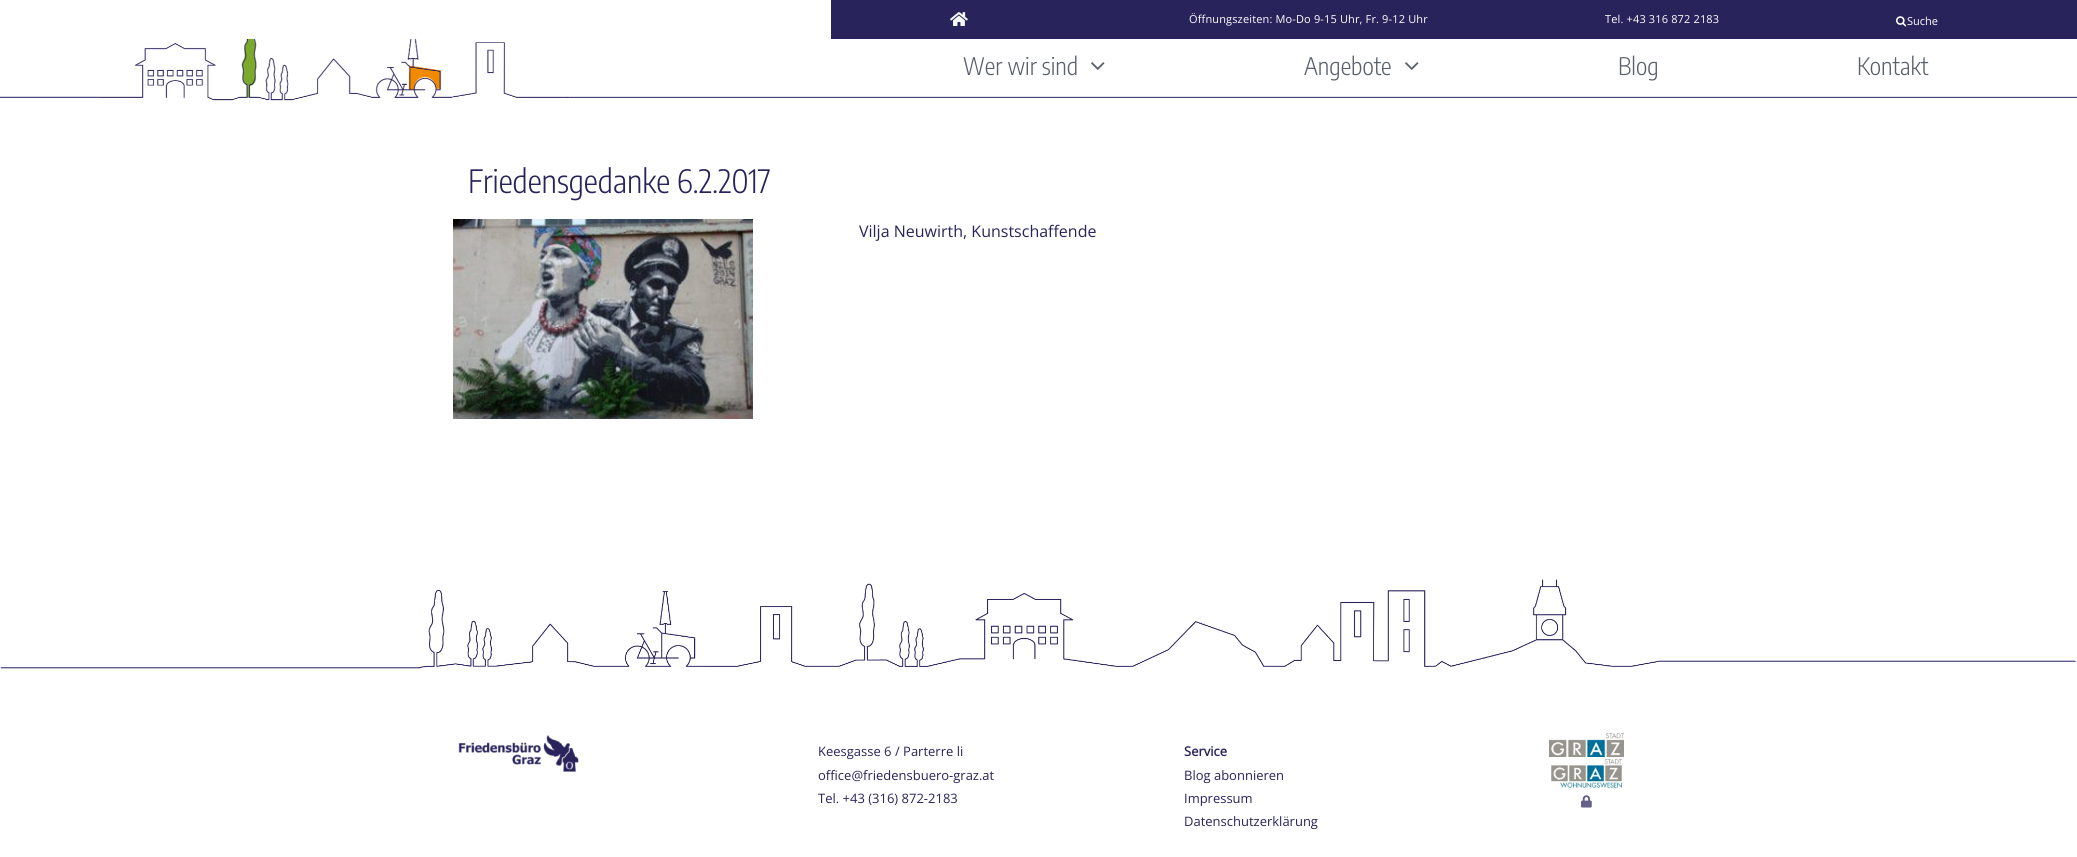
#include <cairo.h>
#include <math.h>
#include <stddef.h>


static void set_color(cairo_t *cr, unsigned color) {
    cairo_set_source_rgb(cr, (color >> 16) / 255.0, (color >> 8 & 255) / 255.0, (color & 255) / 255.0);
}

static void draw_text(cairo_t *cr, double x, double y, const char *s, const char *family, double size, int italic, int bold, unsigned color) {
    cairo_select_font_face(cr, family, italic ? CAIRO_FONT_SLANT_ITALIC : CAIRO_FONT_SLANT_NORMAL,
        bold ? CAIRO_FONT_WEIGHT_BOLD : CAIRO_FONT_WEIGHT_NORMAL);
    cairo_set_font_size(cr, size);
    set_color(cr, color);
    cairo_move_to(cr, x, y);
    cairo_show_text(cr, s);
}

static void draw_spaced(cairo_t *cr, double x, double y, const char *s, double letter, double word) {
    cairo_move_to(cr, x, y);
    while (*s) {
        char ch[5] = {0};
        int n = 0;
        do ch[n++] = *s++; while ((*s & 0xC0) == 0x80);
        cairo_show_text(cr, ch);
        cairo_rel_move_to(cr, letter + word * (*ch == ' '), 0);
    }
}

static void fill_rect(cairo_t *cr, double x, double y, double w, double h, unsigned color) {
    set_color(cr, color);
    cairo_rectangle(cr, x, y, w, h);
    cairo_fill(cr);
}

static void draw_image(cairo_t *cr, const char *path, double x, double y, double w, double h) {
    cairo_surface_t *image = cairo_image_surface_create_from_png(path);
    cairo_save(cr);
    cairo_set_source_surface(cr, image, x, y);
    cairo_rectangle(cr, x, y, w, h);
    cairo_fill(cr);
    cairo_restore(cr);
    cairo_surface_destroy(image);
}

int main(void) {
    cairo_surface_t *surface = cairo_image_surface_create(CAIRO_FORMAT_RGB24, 2077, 857);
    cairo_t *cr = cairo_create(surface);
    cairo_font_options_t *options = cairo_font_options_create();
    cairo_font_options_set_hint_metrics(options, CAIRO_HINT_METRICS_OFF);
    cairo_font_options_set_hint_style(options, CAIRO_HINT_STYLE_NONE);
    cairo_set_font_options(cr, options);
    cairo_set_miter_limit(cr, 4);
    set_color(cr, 0xFFFFFF);
    cairo_paint(cr);
    fill_rect(cr, 831, 0, 1246, 39, 0x29235C);
    draw_image(cr, "assets/img1.png", 950, 12, 18, 14);
    cairo_select_font_face(cr, "Open Sans", CAIRO_FONT_SLANT_NORMAL, CAIRO_FONT_WEIGHT_NORMAL);
    cairo_set_font_size(cr, 11);
    set_color(cr, 0xFFFFFF);
    draw_spaced(cr, 1189, 23, "Öffnungszeiten: Mo-Do 9-15 Uhr, Fr. 9-12 Uhr", 0.15, 0);
    draw_spaced(cr, 1605, 23, "Tel. +43 316 872 2183", 0.15, 0);
    draw_image(cr, "assets/img2.png", 1896, 16, 11, 11);
    draw_text(cr, 1907, 25, "Suche", "Open Sans", 11, 0, 0, 0xFFFFFF);
    draw_image(cr, "assets/img3.png", 0, 38, 2077, 63);
    draw_text(cr, 963, 75, "Wer wir sind", "Encode Sans Condensed Light", 24, 0, 0, 0x595F6B);
    draw_image(cr, "assets/img4.png", 1091, 62, 14, 8);
    draw_text(cr, 1304, 75, "Angebote", "Encode Sans Condensed Light", 24, 0, 0, 0x595F6B);
    draw_image(cr, "assets/img4.png", 1405, 62, 14, 8);
    draw_text(cr, 1618, 75, "Blog", "Encode Sans Condensed Light", 24, 0, 0, 0x595F6B);
    draw_text(cr, 1857, 75, "Kontakt", "Encode Sans Condensed Light", 24, 0, 0, 0x595F6B);
    draw_text(cr, 468, 193, "Friedensgedanke 6.2.2017", "Encode Sans Condensed Light", 32, 0, 0, 0x29235C);
    draw_image(cr, "assets/img5.png", 453, 219, 300, 200);
    draw_text(cr, 859, 237, "Vilja Neuwirth, Kunstschaffende", "Open Sans", 16, 0, 0, 0x29235C);
    draw_image(cr, "assets/img6.png", 0, 579, 2077, 90);
    draw_image(cr, "assets/img7.png", 458, 735, 121, 37);
    draw_text(cr, 818, 756, "Keesgasse 6 / Parterre li", "Open Sans", 13, 0, 0, 0x29235C);
    draw_text(cr, 818, 780, "office@friedensbuero-graz.at", "Open Sans", 13, 0, 0, 0x29235C);
    draw_text(cr, 818, 803, "Tel. +43 (316) 872-2183", "Open Sans", 13, 0, 0, 0x29235C);
    draw_text(cr, 1184, 756, "Service", "Open Sans", 13, 0, 1, 0x29235C);
    draw_text(cr, 1184, 780, "Blog abonnieren", "Open Sans", 13, 0, 0, 0x29235C);
    draw_text(cr, 1184, 803, "Impressum", "Open Sans", 13, 0, 0, 0x29235C);
    draw_text(cr, 1184, 826, "Datenschutzerklärung", "Open Sans", 13, 0, 0, 0x29235C);
    draw_image(cr, "assets/img8.png", 1549, 733, 75, 24);
    draw_image(cr, "assets/img9.png", 1550, 757, 74, 33);
    draw_image(cr, "assets/img10.png", 1581, 795, 11, 13);
    cairo_surface_write_to_png(surface, "output.png");
    cairo_font_options_destroy(options);
    cairo_destroy(cr);
    cairo_surface_destroy(surface);
    return 0;
}
